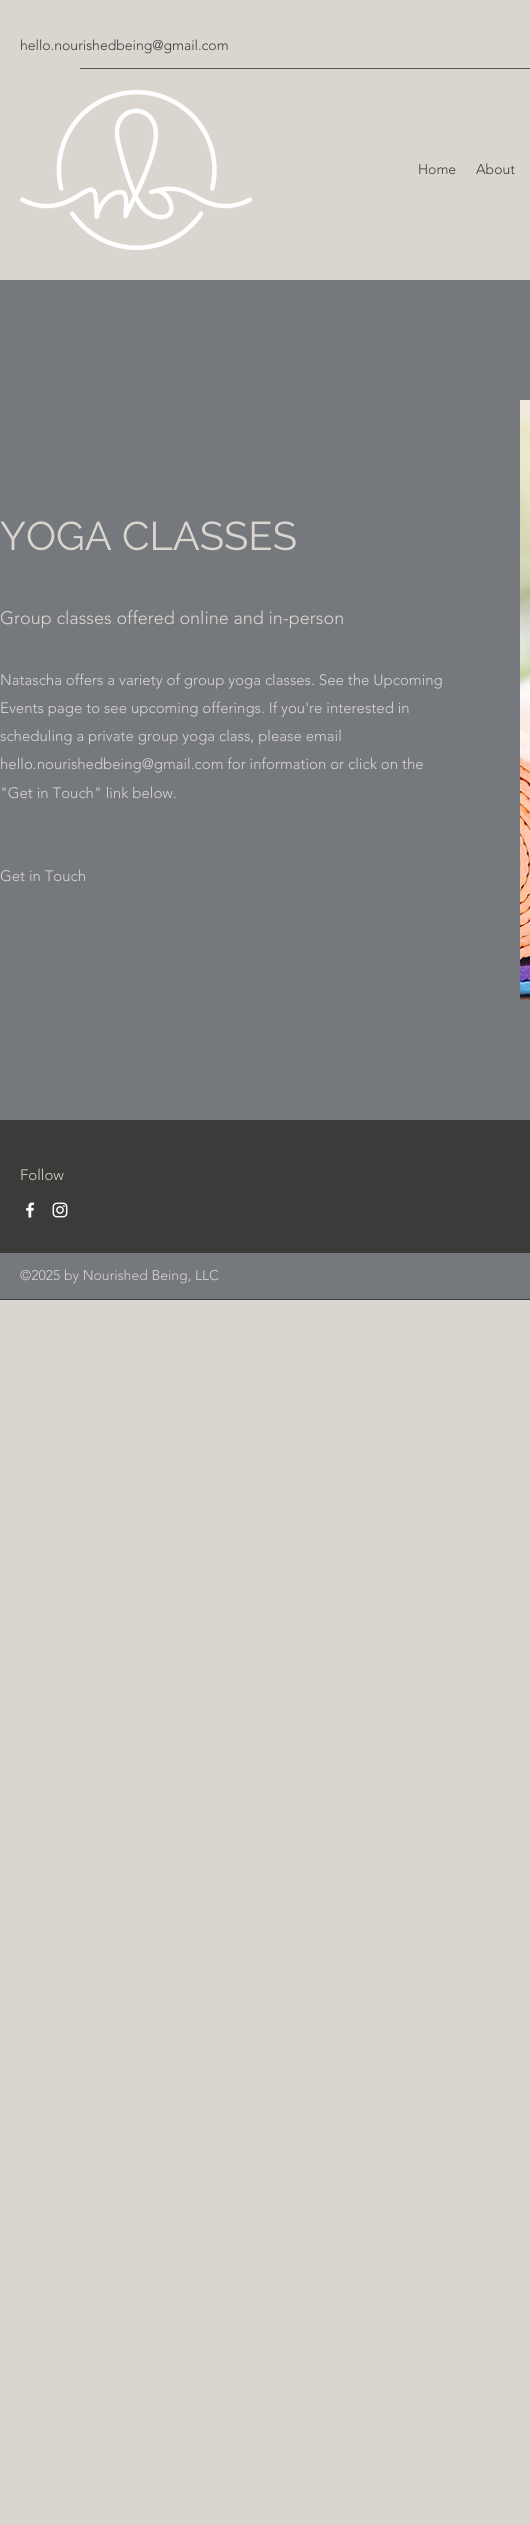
#include <cairo.h>
#include <math.h>
#include <stddef.h>


static void set_color(cairo_t *cr, unsigned color) {
    cairo_set_source_rgb(cr, (color >> 16) / 255.0, (color >> 8 & 255) / 255.0, (color & 255) / 255.0);
}

static void draw_text(cairo_t *cr, double x, double y, const char *s, const char *family, double size, int italic, int bold, unsigned color) {
    cairo_select_font_face(cr, family, italic ? CAIRO_FONT_SLANT_ITALIC : CAIRO_FONT_SLANT_NORMAL,
        bold ? CAIRO_FONT_WEIGHT_BOLD : CAIRO_FONT_WEIGHT_NORMAL);
    cairo_set_font_size(cr, size);
    set_color(cr, color);
    cairo_move_to(cr, x, y);
    cairo_show_text(cr, s);
}

static void fill_rect(cairo_t *cr, double x, double y, double w, double h, unsigned color) {
    set_color(cr, color);
    cairo_rectangle(cr, x, y, w, h);
    cairo_fill(cr);
}

static void draw_image(cairo_t *cr, const char *path, double x, double y, double w, double h) {
    cairo_surface_t *image = cairo_image_surface_create_from_png(path);
    cairo_save(cr);
    cairo_set_source_surface(cr, image, x, y);
    cairo_rectangle(cr, x, y, w, h);
    cairo_fill(cr);
    cairo_restore(cr);
    cairo_surface_destroy(image);
}

int main(void) {
    cairo_surface_t *surface = cairo_image_surface_create(CAIRO_FORMAT_RGB24, 530, 2525);
    cairo_t *cr = cairo_create(surface);
    cairo_font_options_t *options = cairo_font_options_create();
    cairo_font_options_set_hint_metrics(options, CAIRO_HINT_METRICS_OFF);
    cairo_font_options_set_hint_style(options, CAIRO_HINT_STYLE_NONE);
    cairo_set_font_options(cr, options);
    cairo_set_miter_limit(cr, 4);
    set_color(cr, 0xDAD5CF);
    cairo_paint(cr);
    draw_text(cr, 20, 50, "hello.nourishedbeing@gmail.com", "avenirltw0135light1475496 Light", 14, 0, 0, 0x3B3C39);
    fill_rect(cr, 80, 68, 450, 1, 0x535350);
    draw_image(cr, "assets/img1.png", 20, 90, 232, 160);
    draw_text(cr, 418, 174, "Home", "avenirltw0135light1475496 Light", 14, 0, 0, 0x3B3C39);
    draw_text(cr, 476, 174, "About", "avenirltw0135light1475496 Light", 14, 0, 0, 0x3B3C39);
    fill_rect(cr, 0, 280, 530, 840, 0x75797E);
    draw_text(cr, 0, 550, "YOGA CLASSES", "Raleway", 40, 0, 0, 0xDAD5CF);
    draw_text(cr, 0, 624, "Group classes offered online and in-person", "avenirltw0135light1475496 Light", 18, 0, 0, 0xDAD5CF);
    draw_text(cr, 0, 685, "Natascha offers a variety of group yoga classes. See the Upcoming", "avenirltw0135light1475496 Light", 15, 0, 0, 0xDAD5CF);
    draw_text(cr, 0, 713, "Events page to see upcoming offerings. If you're interested in", "avenirltw0135light1475496 Light", 15, 0, 0, 0xDAD5CF);
    draw_text(cr, 0, 741, "scheduling a private group yoga class, please email", "avenirltw0135light1475496 Light", 15, 0, 0, 0xDAD5CF);
    draw_text(cr, 0, 769, "hello.nourishedbeing@gmail.com for information or click on the", "avenirltw0135light1475496 Light", 15, 0, 0, 0xDAD5CF);
    draw_text(cr, 0, 798, "\"Get in Touch\" link below.", "avenirltw0135light1475496 Light", 15, 0, 0, 0xDAD5CF);
    draw_text(cr, 0, 881, "Get in Touch", "avenirltw0135light1475496 Light", 15, 0, 0, 0xDAD5CF);
    draw_image(cr, "assets/img2.png", 520, 400, 10, 600);
    fill_rect(cr, 0, 1120, 530, 180, 0x3B3C39);
    draw_text(cr, 20, 1180, "Follow", "avenirltw0135light1475496 Light", 15, 0, 0, 0xDAD5CF);
    draw_image(cr, "assets/img3.png", 26, 1202, 9, 16);
    draw_image(cr, "assets/img4.png", 52, 1202, 16, 16);
    fill_rect(cr, 0, 1253, 530, 46, 0x75797E);
    draw_text(cr, 20, 1280, "©2025 by Nourished Being, LLC", "avenirltw0135light1475496 Light", 14, 0, 0, 0xDAD5CF);
    cairo_surface_write_to_png(surface, "output.png");
    cairo_font_options_destroy(options);
    cairo_destroy(cr);
    cairo_surface_destroy(surface);
    return 0;
}
